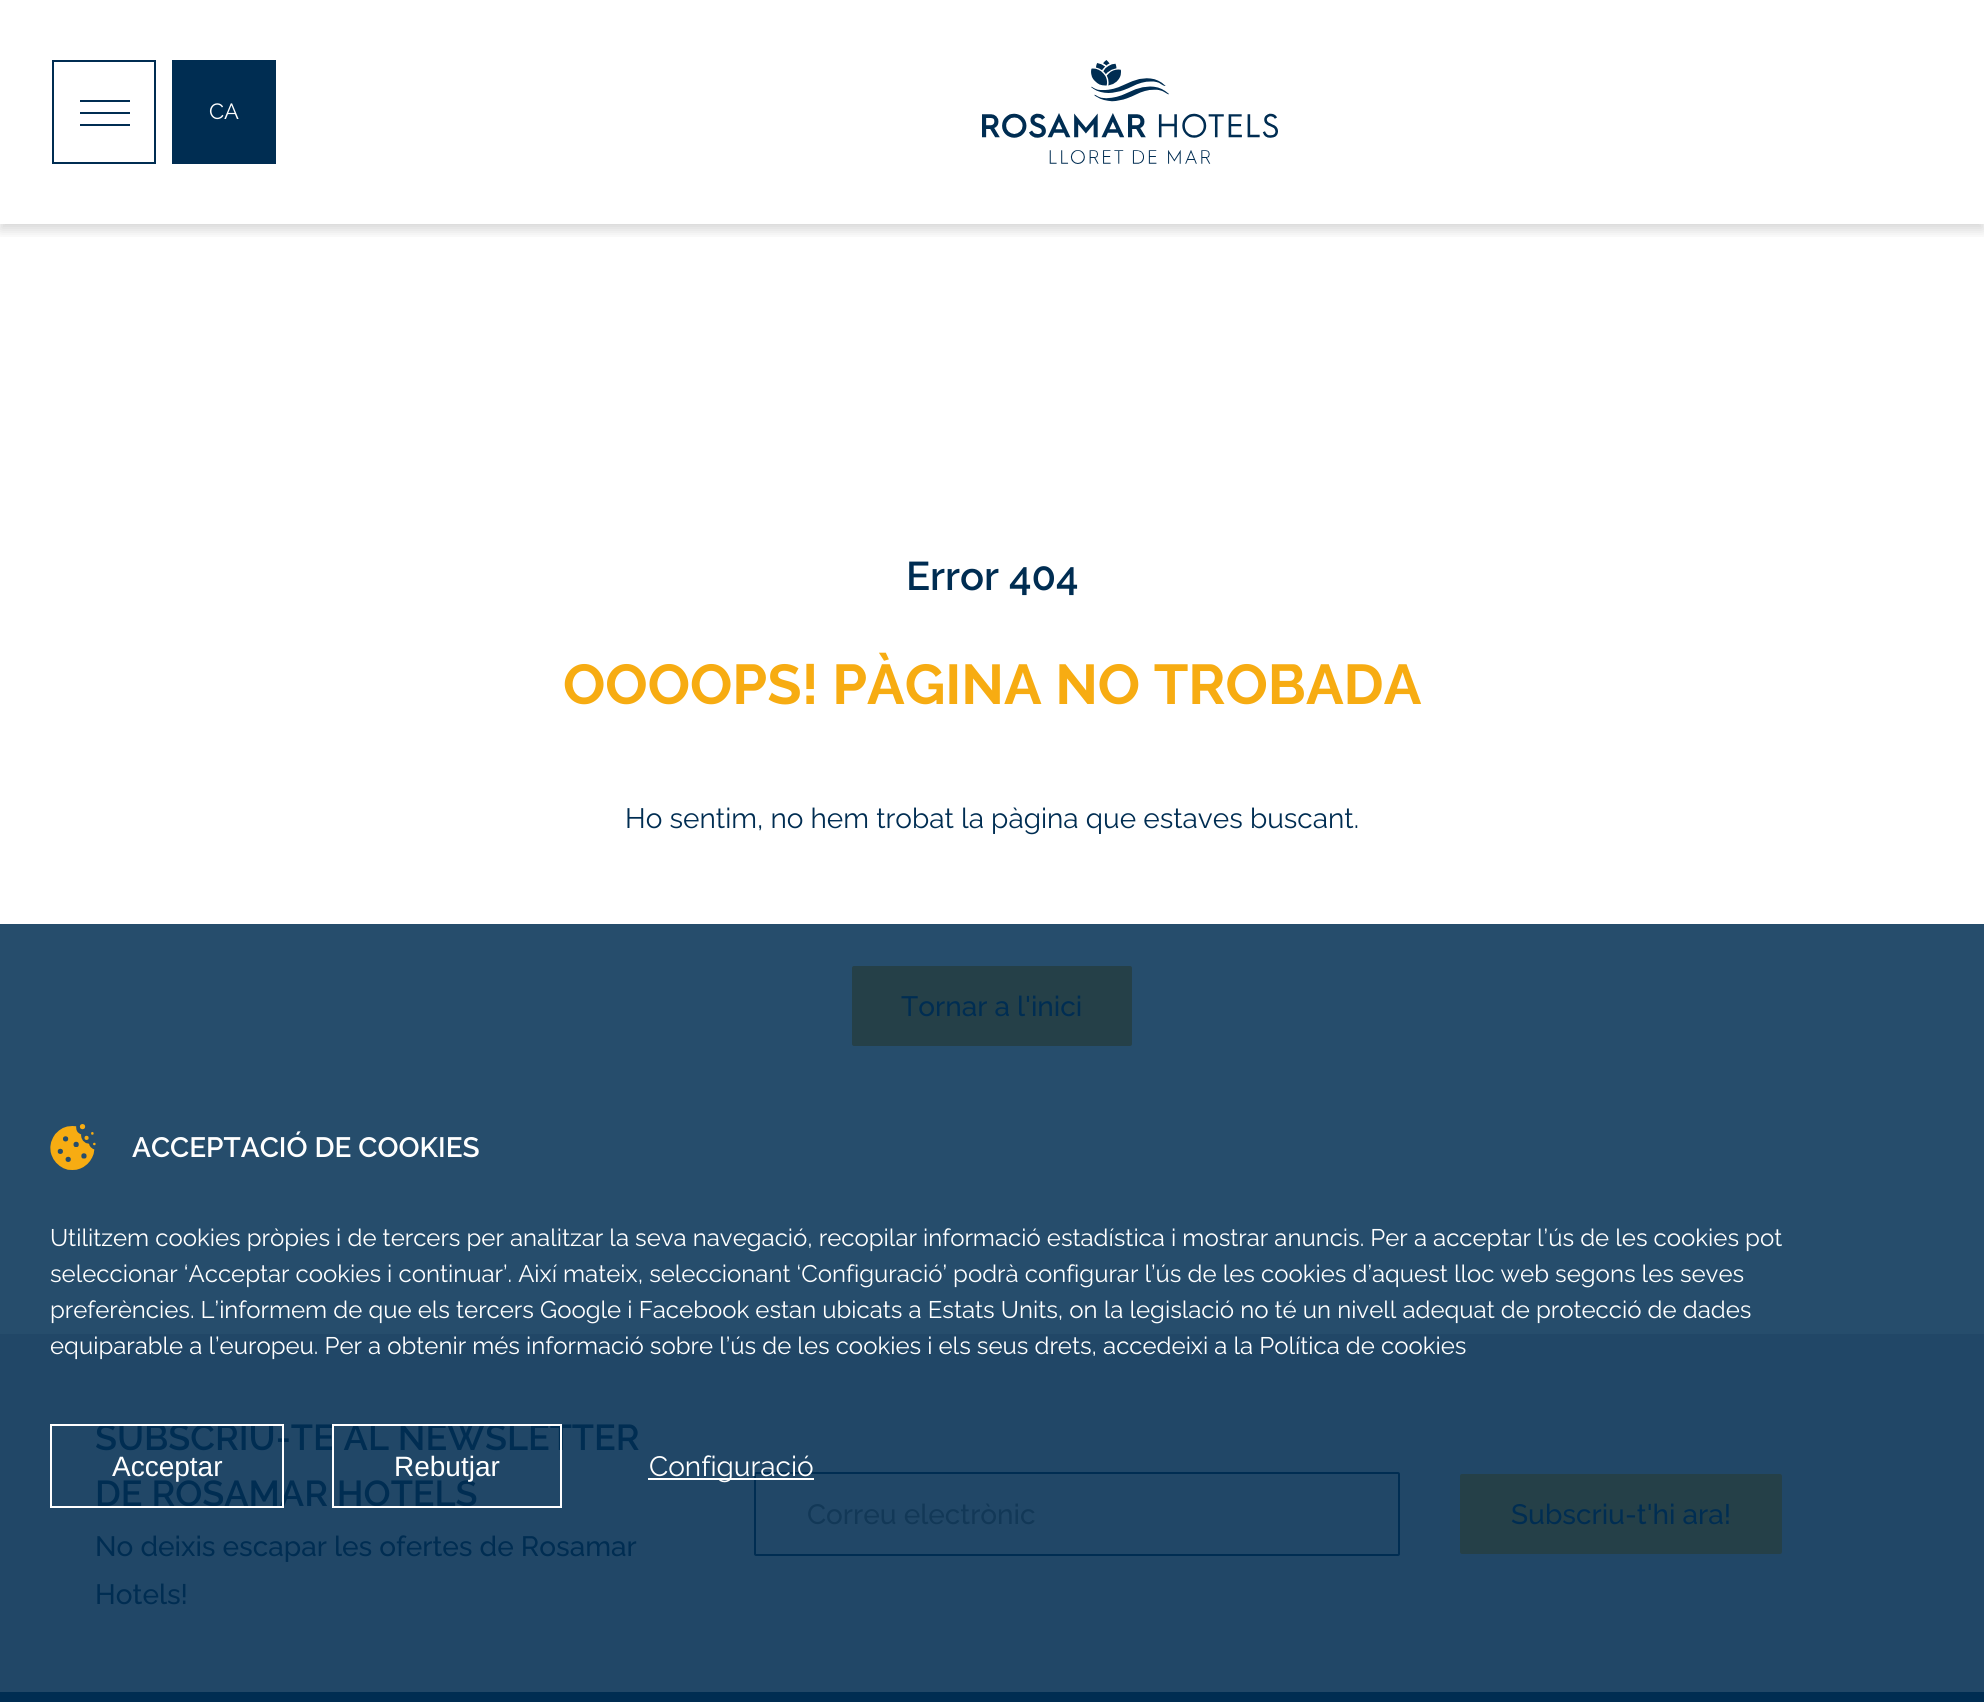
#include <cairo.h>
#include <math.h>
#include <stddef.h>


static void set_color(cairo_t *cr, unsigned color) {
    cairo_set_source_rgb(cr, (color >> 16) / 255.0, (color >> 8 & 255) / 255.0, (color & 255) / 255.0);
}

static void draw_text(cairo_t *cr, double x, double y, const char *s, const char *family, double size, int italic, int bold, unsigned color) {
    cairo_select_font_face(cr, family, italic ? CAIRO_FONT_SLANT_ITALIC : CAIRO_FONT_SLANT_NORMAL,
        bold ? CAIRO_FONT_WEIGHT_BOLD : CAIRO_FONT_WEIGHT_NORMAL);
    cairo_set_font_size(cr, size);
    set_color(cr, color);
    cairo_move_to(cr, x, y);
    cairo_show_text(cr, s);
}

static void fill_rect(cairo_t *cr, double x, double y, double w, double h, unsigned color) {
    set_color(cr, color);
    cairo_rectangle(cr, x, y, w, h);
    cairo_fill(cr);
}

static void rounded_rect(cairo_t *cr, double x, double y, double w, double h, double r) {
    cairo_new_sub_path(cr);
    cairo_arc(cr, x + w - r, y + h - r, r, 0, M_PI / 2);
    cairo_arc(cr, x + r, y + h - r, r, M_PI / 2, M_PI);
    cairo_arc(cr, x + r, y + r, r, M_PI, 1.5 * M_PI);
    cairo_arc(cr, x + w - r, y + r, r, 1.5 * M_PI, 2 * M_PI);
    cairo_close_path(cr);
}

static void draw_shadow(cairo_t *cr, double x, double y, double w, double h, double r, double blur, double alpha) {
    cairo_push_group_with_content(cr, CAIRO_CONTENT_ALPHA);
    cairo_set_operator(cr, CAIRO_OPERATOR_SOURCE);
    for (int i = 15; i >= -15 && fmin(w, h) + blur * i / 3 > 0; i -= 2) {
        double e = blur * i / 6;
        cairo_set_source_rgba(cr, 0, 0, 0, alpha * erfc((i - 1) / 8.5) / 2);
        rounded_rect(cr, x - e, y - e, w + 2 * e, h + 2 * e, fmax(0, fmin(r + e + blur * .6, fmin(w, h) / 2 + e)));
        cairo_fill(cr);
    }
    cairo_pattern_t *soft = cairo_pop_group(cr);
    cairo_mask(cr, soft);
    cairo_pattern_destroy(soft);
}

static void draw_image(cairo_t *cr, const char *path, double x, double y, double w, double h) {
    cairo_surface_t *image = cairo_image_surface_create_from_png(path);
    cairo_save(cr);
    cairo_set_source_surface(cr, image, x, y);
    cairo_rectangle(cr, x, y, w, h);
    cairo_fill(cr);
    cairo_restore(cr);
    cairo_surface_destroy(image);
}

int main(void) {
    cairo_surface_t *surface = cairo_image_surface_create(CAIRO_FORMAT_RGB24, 1984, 1702);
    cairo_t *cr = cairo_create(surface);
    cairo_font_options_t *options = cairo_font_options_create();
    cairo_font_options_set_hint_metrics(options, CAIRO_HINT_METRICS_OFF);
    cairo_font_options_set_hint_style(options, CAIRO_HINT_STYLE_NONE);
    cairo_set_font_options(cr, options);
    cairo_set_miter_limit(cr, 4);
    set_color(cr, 0xFFFFFF);
    cairo_paint(cr);
    fill_rect(cr, 0, 924, 1984, 410, 0x264D6C);
    cairo_save(cr);
    cairo_rectangle(cr, 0, 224, 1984, 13);
    cairo_clip(cr);
    set_color(cr, 0x000000);
    draw_shadow(cr, 0, 6, 1984, 224, 0, 6, 0.16);
    cairo_restore(cr);
    cairo_rectangle(cr, 53, 61, 102, 102);
    set_color(cr, 0x002D52);
    cairo_stroke(cr);
    fill_rect(cr, 80, 100, 50, 2, 0x002D52);
    fill_rect(cr, 80, 112, 50, 2, 0x002D52);
    fill_rect(cr, 80, 124, 50, 2, 0x002D52);
    fill_rect(cr, 172, 60, 104, 104, 0x002D52);
    draw_text(cr, 209, 119, "CA", "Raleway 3 Thin", 22, 0, 0, 0xFFFFFF);
    draw_image(cr, "assets/img1.png", 982, 60, 296, 104);
    draw_text(cr, 906, 590, "Error 404", "Raleway Thin", 40, 0, 0, 0x002D52);
    draw_text(cr, 563, 704, "OOOOPS! PÀGINA NO TROBADA", "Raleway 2 Thin", 56, 0, 0, 0xF7AC12);
    draw_text(cr, 625, 828, "Ho sentim, no hem trobat la pàgina que estaves buscant.", "Raleway 3 Thin", 28, 0, 0, 0x002D52);
    set_color(cr, 0x254048);
    rounded_rect(cr, 852, 966, 280, 80, 2);
    cairo_fill(cr);
    draw_text(cr, 901, 1016, "Tornar a l'inici", "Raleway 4 Thin", 28, 0, 0, 0x002D52);
    draw_image(cr, "assets/img2.png", 50, 1124, 46, 46);
    draw_text(cr, 132, 1157, "ACCEPTACIÓ DE COOKIES", "Raleway Thin", 28, 0, 0, 0xFFFFFF);
    draw_text(cr, 50, 1246, "Utilitzem cookies pròpies i de tercers per analitzar la seva navegació, recopilar informació estadística i mostrar anuncis. Per a acceptar l’ús de les cookies pot", "Raleway 3 Thin", 24, 0, 0, 0xFFFFFF);
    draw_text(cr, 50, 1282, "seleccionar ‘Acceptar cookies i continuar’. Així mateix, seleccionant ‘Configuració’ podrà configurar l’ús de les cookies d’aquest lloc web segons les seves", "Raleway 3 Thin", 24, 0, 0, 0xFFFFFF);
    draw_text(cr, 50, 1318, "preferències. L’informem de que els tercers Google i Facebook estan ubicats a Estats Units, on la legislació no té un nivell adequat de protecció de dades", "Raleway 3 Thin", 24, 0, 0, 0xFFFFFF);
    fill_rect(cr, 0, 1334, 1984, 358, 0x214767);
    draw_text(cr, 50, 1354, "equiparable a l’europeu. Per a obtenir més informació sobre l’ús de les cookies i els seus drets, accedeixi a la Política de cookies", "Raleway 3 Thin", 24, 0, 0, 0xFFFFFF);
    draw_text(cr, 95, 1450, "SUBSCRIU-TE AL NEWSLETTER", "Raleway Thin", 36, 0, 0, 0x002D52);
    draw_text(cr, 95, 1506, "DE ROSAMAR HOTELS", "Raleway Thin", 36, 0, 0, 0x002D52);
    cairo_rectangle(cr, 51, 1425, 232, 82);
    set_color(cr, 0xFFFFFF);
    cairo_stroke(cr);
    draw_text(cr, 112, 1476, "Acceptar", "Liberation Sans", 28, 0, 0, 0xFFFFFF);
    cairo_rectangle(cr, 333, 1425, 228, 82);
    cairo_stroke(cr);
    draw_text(cr, 394, 1476, "Rebutjar", "Liberation Sans", 28, 0, 0, 0xFFFFFF);
    rounded_rect(cr, 755, 1473, 644, 82, 1);
    set_color(cr, 0x002D52);
    cairo_stroke(cr);
    fill_rect(cr, 648, 1478, 166, 2, 0xFFFFFF);
    draw_text(cr, 649, 1476, "Configuració", "Raleway 3 Thin", 28, 0, 0, 0xFFFFFF);
    draw_text(cr, 95, 1556, "No deixis escapar les ofertes de Rosamar", "Raleway 4 Thin", 28, 0, 0, 0x002D52);
    draw_text(cr, 95, 1604, "Hotels!", "Raleway 4 Thin", 28, 0, 0, 0x002D52);
    draw_text(cr, 807, 1524, "Correu electrònic", "Raleway 4 Thin", 28, 0, 0, 0x123857);
    set_color(cr, 0x254048);
    rounded_rect(cr, 1460, 1474, 322, 80, 2);
    cairo_fill(cr);
    draw_text(cr, 1511, 1524, "Subscriu-t'hi ara!", "Raleway 4 Thin", 28, 0, 0, 0x002D52);
    fill_rect(cr, 0, 1692, 1984, 10, 0x002D52);
    cairo_surface_write_to_png(surface, "output.png");
    cairo_font_options_destroy(options);
    cairo_destroy(cr);
    cairo_surface_destroy(surface);
    return 0;
}
